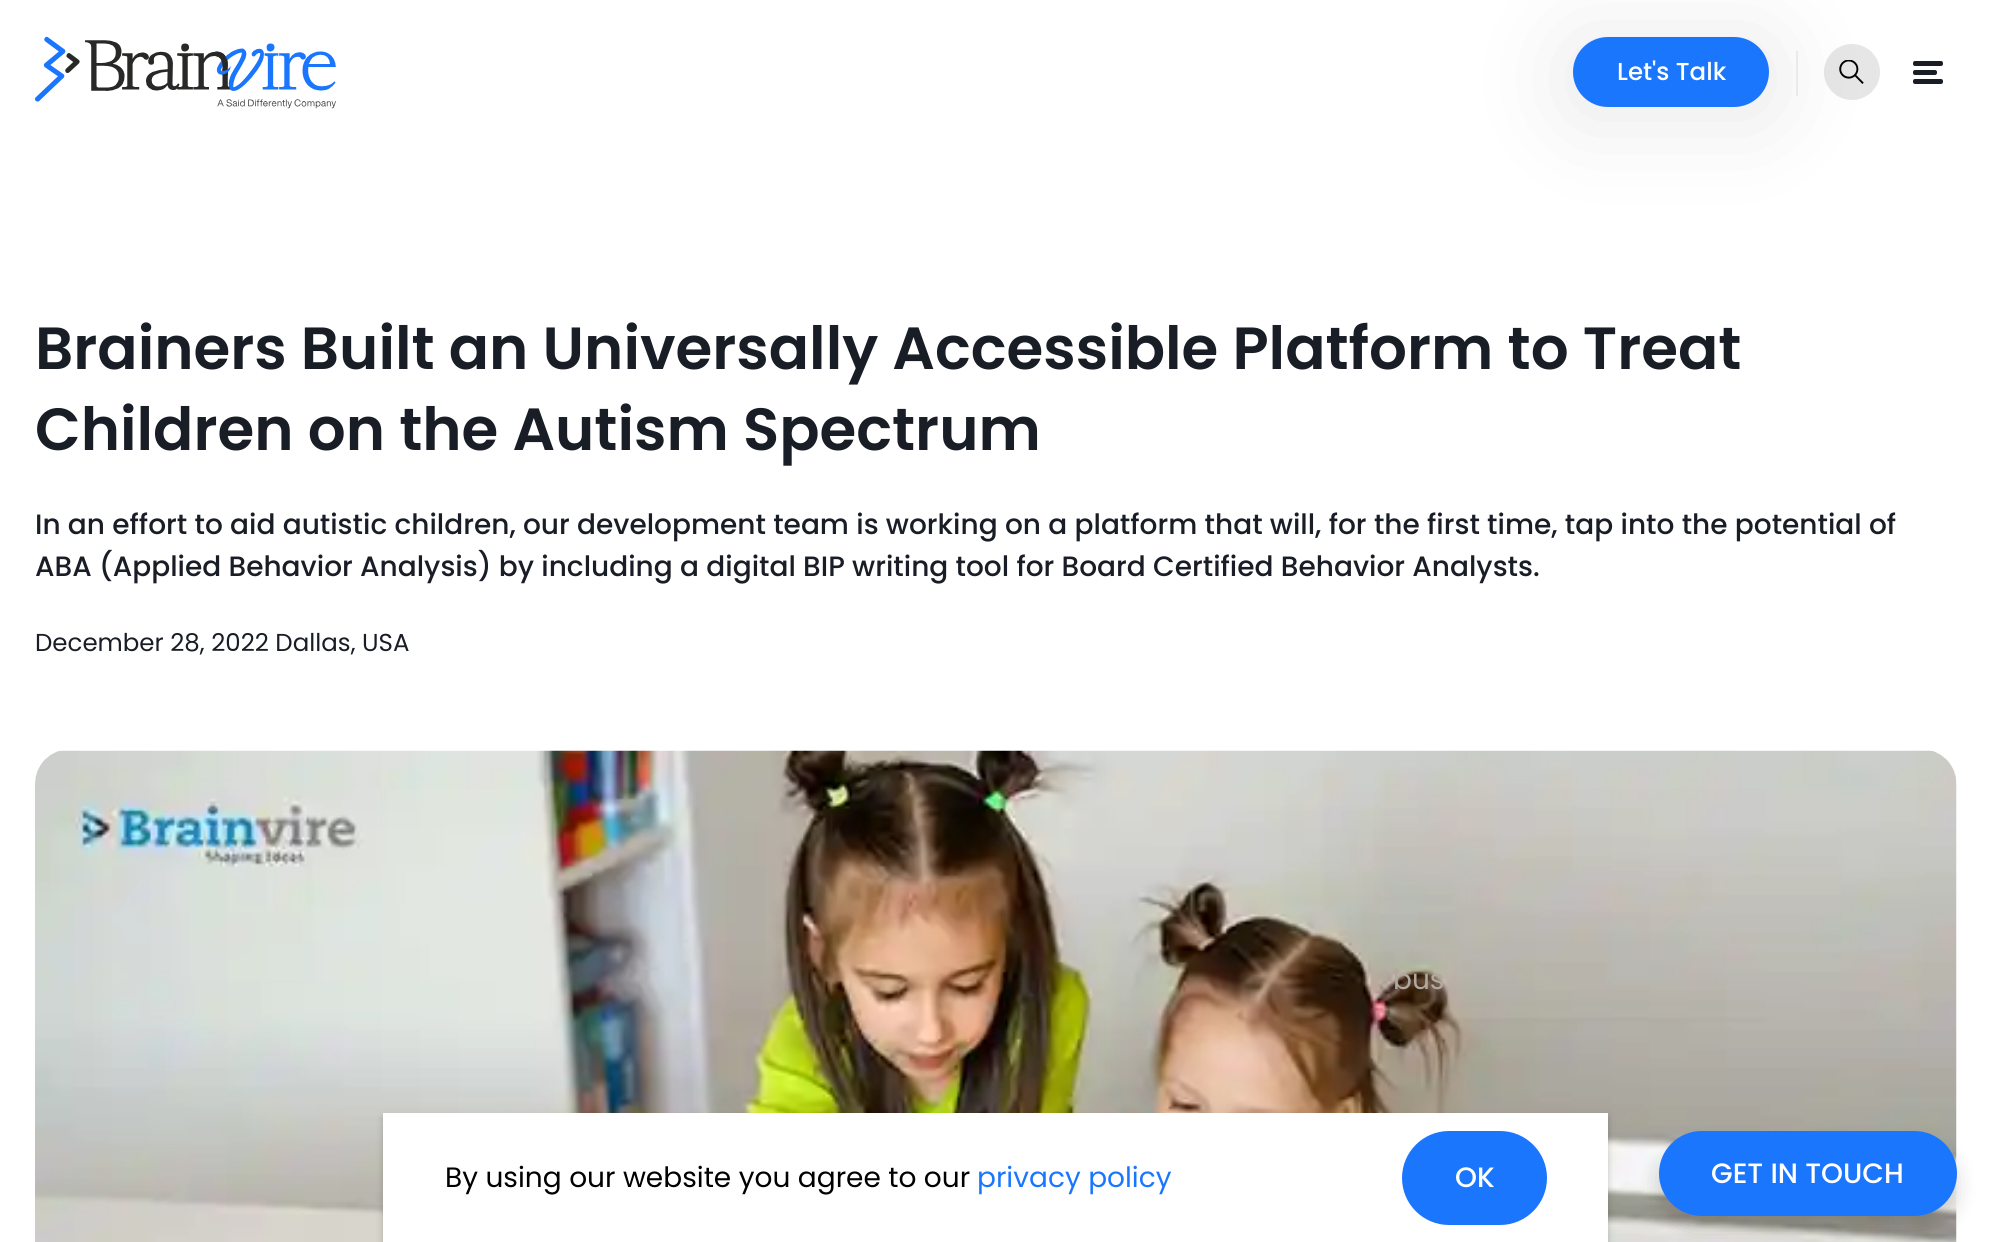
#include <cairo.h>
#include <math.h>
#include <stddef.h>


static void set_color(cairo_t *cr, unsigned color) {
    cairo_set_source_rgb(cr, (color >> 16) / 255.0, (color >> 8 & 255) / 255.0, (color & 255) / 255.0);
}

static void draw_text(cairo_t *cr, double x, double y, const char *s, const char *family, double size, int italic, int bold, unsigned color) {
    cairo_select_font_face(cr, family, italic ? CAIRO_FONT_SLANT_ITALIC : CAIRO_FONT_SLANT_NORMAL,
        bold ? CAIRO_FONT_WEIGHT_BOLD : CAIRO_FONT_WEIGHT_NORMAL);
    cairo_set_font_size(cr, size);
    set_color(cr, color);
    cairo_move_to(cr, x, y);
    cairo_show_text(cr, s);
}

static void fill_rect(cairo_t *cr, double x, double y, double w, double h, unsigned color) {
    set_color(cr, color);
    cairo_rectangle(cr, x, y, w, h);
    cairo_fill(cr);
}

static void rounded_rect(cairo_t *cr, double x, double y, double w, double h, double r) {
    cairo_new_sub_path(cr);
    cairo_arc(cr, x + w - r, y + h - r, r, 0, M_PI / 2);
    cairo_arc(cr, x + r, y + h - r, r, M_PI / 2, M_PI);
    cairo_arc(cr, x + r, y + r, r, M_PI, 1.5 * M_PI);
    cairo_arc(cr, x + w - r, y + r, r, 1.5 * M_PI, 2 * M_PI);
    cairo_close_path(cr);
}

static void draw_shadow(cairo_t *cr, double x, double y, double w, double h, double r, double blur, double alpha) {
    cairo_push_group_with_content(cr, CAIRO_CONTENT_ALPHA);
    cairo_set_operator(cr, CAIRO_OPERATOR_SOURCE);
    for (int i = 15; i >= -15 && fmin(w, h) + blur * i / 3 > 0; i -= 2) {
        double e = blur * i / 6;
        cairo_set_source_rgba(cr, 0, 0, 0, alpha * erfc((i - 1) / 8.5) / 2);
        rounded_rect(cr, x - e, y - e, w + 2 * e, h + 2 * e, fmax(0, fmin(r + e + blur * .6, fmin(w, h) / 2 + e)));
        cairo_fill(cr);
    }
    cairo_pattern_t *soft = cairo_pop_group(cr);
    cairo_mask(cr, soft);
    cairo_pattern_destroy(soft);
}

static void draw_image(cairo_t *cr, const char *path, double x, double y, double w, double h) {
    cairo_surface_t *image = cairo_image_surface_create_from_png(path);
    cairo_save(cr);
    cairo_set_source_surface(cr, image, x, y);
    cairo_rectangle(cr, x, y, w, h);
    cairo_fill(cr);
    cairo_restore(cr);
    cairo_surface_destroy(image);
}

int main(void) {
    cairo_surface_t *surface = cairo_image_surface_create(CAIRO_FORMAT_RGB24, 1991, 1242);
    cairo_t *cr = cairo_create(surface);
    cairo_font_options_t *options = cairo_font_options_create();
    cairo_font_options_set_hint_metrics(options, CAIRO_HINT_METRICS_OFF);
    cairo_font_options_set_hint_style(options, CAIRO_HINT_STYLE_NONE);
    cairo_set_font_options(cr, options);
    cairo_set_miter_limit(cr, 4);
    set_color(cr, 0xFFFFFF);
    cairo_paint(cr);
    draw_image(cr, "assets/img1.png", 35, 36, 301, 73);
    set_color(cr, 0xE6E6E6);
    cairo_arc(cr, 1852, 72, 28, 0, 2 * M_PI);
    cairo_fill(cr);
    draw_image(cr, "assets/img2.png", 1839, 60, 25, 24);
    set_color(cr, 0x000000);
    draw_shadow(cr, 1573, 44, 196, 70, 35, 49, 0.1);
    set_color(cr, 0x1B76FE);
    rounded_rect(cr, 1575, 39, 192, 66, 33);
    cairo_fill_preserve(cr);
    cairo_set_line_width(cr, 4);
    cairo_stroke(cr);
    draw_text(cr, 1617, 80, "Let's Talk", "Poppins Medium", 24.5, 0, 0, 0xFFFFFF);
    fill_rect(cr, 1796, 51, 2, 45, 0xEAEAEA);
    set_color(cr, 0x191D26);
    rounded_rect(cr, 1913, 61, 30, 5, 2);
    cairo_fill(cr);
    rounded_rect(cr, 1913, 70, 24, 5, 2);
    cairo_fill(cr);
    rounded_rect(cr, 1913, 79, 30, 5, 2);
    cairo_fill(cr);
    draw_text(cr, 35, 369, "Brainers Built an Universally Accessible Platform to Treat", "Poppins SemiBold", 59.5, 0, 0, 0x191D26);
    draw_text(cr, 35, 450, "Children on the Autism Spectrum", "Poppins SemiBold", 59.5, 0, 0, 0x191D26);
    draw_text(cr, 35, 534, "In an effort to aid autistic children, our development team is working on a platform that will, for the first time, tap into the potential of", "Poppins Medium", 28, 0, 0, 0x191D26);
    draw_text(cr, 35, 576, "ABA (Applied Behavior Analysis) by including a digital BIP writing tool for Board Certified Behavior Analysts.", "Poppins Medium", 28, 0, 0, 0x191D26);
    draw_text(cr, 35, 651, "December 28, 2022 Dallas, USA", "Poppins", 24.5, 0, 0, 0x191D26);
    draw_image(cr, "assets/img3.png", 35, 750, 1922, 492);
    set_color(cr, 0x000000);
    draw_shadow(cr, 383, 1117, 1225, 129, 0, 3.5, 0.2);
    fill_rect(cr, 383, 1113, 1225, 129, 0xFFFFFF);
    draw_text(cr, 445, 1187, "By using our website you agree to our", "Poppins", 28, 0, 0, 0x000000);
    draw_text(cr, 977, 1187, "privacy policy", "Poppins", 28, 0, 0, 0x1B76FE);
    rounded_rect(cr, 1404, 1133, 141, 90, 45);
    cairo_fill_preserve(cr);
    cairo_stroke(cr);
    draw_text(cr, 1455, 1187, "OK", "Poppins Medium", 28, 0, 0, 0xFFFFFF);
    draw_text(cr, 1393, 989, "bus", "Poppins", 28, 0, 0, 0xAFA9A1);
    set_color(cr, 0x000000);
    draw_shadow(cr, 1659, 1145, 298, 85, 42.5, 10.5, 0.15);
    set_color(cr, 0x1B76FE);
    rounded_rect(cr, 1661, 1133, 294, 81, 40.5);
    cairo_fill_preserve(cr);
    cairo_stroke(cr);
    draw_text(cr, 1711, 1183, "GET IN TOUCH", "Poppins Medium", 28, 0, 0, 0xFFFFFF);
    cairo_surface_write_to_png(surface, "output.png");
    cairo_font_options_destroy(options);
    cairo_destroy(cr);
    cairo_surface_destroy(surface);
    return 0;
}
